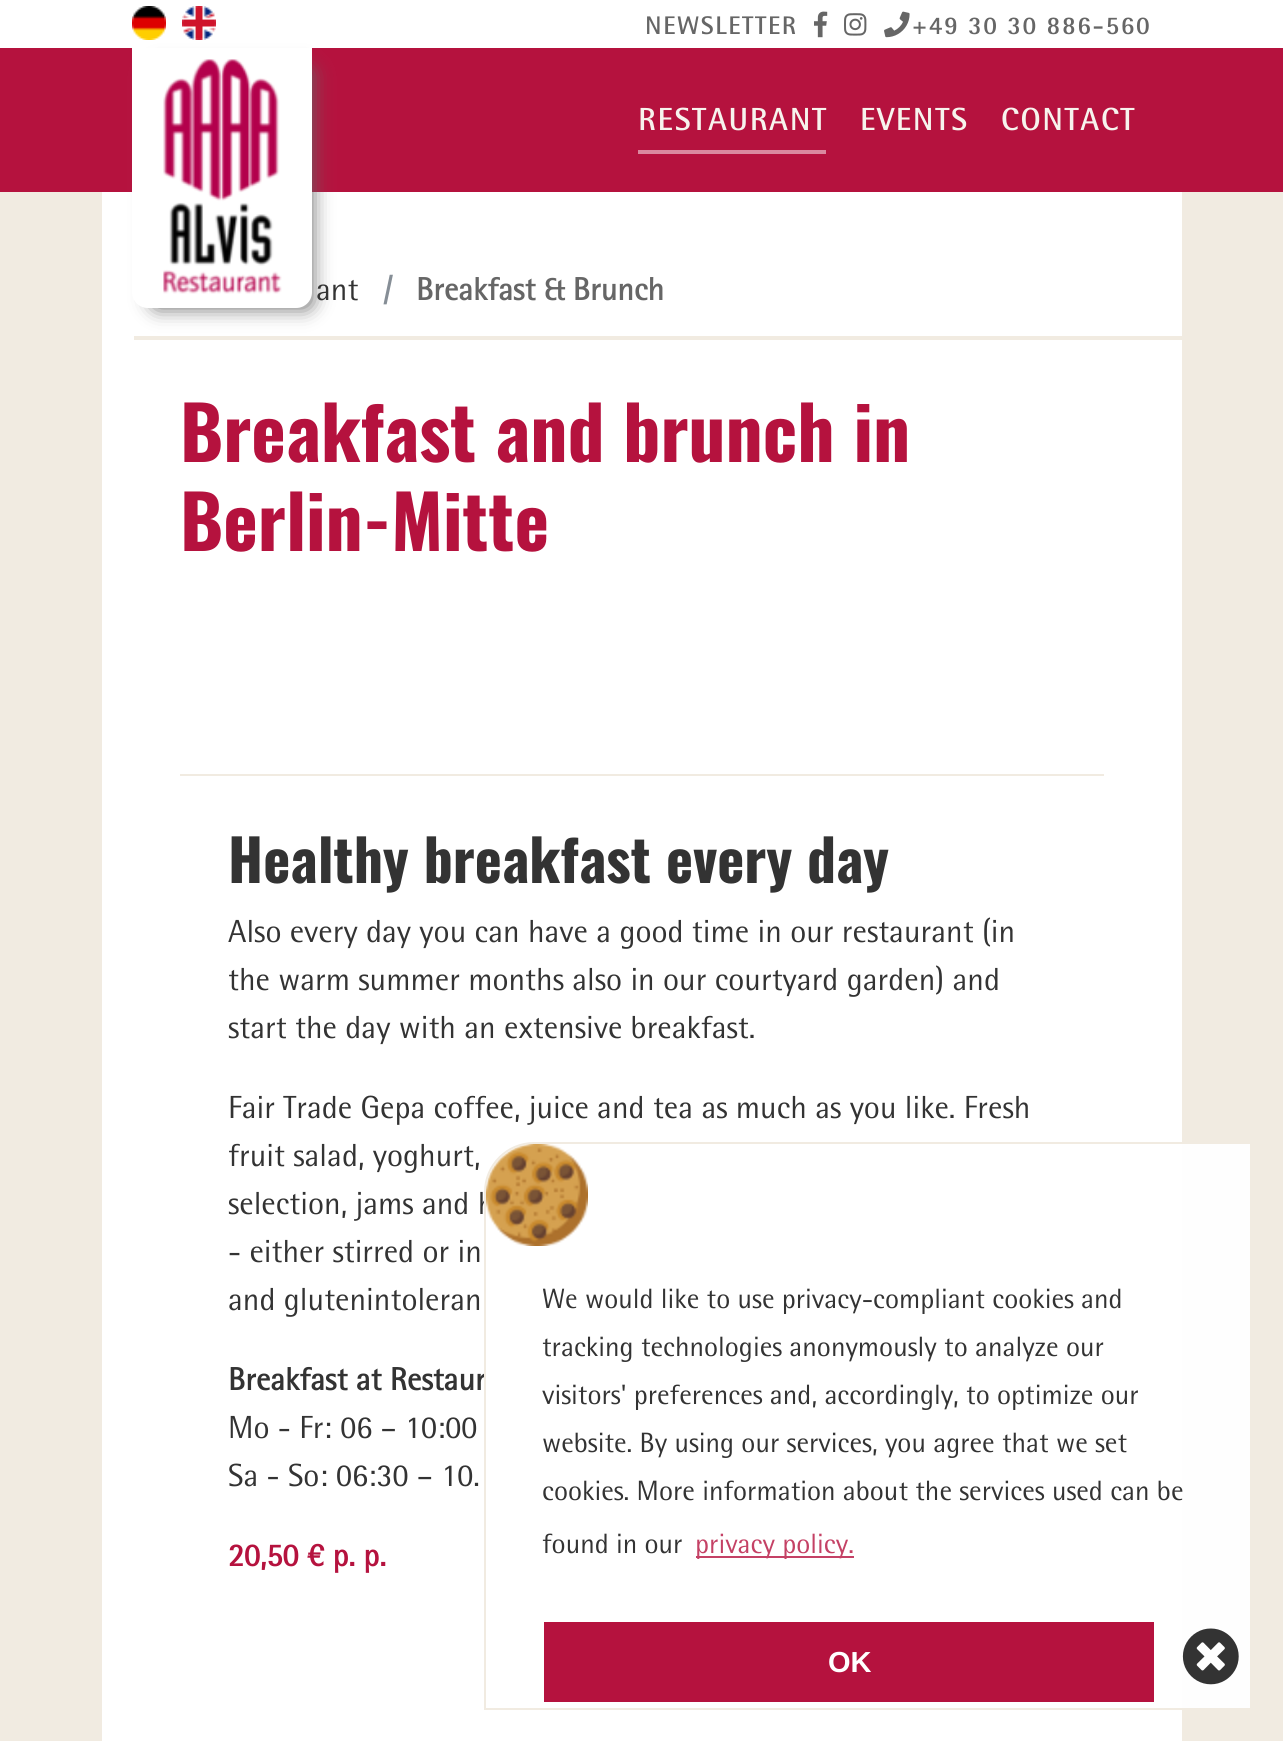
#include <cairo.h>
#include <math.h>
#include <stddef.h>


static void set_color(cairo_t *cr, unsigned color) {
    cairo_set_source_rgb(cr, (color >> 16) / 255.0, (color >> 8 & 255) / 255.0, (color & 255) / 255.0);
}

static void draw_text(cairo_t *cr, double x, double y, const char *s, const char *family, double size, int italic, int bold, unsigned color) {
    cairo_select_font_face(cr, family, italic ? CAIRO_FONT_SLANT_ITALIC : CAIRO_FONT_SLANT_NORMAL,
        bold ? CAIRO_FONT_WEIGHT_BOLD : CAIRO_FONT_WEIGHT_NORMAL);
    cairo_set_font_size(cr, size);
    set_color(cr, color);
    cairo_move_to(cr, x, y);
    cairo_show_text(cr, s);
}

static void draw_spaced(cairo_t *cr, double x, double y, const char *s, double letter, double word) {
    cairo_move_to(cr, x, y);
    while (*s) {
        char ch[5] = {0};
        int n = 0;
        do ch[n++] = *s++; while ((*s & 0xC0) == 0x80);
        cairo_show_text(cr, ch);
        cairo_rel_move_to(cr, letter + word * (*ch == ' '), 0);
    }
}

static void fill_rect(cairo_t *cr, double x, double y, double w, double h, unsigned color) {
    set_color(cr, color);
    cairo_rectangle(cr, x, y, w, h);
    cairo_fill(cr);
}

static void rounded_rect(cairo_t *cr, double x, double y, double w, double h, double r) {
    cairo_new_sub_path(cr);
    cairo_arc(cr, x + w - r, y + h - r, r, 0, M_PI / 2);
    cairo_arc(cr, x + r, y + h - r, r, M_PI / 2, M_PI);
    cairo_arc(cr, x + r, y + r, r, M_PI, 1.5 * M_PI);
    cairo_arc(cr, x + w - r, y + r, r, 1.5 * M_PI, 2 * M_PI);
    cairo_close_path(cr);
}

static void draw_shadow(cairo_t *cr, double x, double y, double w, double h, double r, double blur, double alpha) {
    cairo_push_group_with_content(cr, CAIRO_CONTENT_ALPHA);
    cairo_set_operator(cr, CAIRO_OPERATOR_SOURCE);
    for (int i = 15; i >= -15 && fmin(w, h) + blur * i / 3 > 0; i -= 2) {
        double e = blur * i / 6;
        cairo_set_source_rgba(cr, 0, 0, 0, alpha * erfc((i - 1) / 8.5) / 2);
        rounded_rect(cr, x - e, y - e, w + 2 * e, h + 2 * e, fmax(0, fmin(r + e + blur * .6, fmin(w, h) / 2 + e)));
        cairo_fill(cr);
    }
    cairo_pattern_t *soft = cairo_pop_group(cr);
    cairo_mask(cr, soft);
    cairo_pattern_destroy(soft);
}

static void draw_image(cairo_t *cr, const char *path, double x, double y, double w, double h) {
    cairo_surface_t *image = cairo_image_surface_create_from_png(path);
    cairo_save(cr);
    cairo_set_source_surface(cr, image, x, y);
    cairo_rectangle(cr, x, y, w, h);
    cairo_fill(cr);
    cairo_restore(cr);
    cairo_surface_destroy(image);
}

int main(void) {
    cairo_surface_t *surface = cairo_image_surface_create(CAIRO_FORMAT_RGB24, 1283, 1741);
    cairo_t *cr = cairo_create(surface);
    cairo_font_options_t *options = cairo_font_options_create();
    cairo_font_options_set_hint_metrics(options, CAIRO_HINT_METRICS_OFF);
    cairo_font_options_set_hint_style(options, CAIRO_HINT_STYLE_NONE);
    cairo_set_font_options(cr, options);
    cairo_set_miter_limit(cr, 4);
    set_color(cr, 0xF1EBE1);
    cairo_paint(cr);
    fill_rect(cr, 0, 0, 1283, 48, 0xFFFFFF);
    draw_image(cr, "assets/img1.png", 132, 6, 34, 34);
    draw_image(cr, "assets/img2.png", 182, 6, 34, 34);
    cairo_select_font_face(cr, "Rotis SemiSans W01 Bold", CAIRO_FONT_SLANT_NORMAL, CAIRO_FONT_WEIGHT_BOLD);
    cairo_set_font_size(cr, 25.5);
    set_color(cr, 0x666666);
    draw_spaced(cr, 645, 34, "NEWSLETTER", 1.6, 0);
    draw_image(cr, "assets/img3.png", 814, 11, 14, 27);
    draw_image(cr, "assets/img4.png", 844, 13, 23, 23);
    draw_image(cr, "assets/img5.png", 884, 11, 26, 27);
    draw_spaced(cr, 912, 34, "+49 30 30 886-560", 1.6, 0);
    fill_rect(cr, 0, 48, 1283, 144, 0xB5123E);
    fill_rect(cr, 102, 192, 1080, 50, 0xFFFFFF);
    fill_rect(cr, 102, 242, 1080, 1499, 0xFFFFFF);
    fill_rect(cr, 134, 336, 1048, 4, 0xF1EBE1);
    set_color(cr, 0x666666);
    draw_shadow(cr, 152, 68, 160, 240, 6, 10, 1);
    set_color(cr, 0xFFFFFF);
    cairo_new_path(cr);
    cairo_move_to(cr, 132, 48);
    cairo_line_to(cr, 312, 48);
    cairo_line_to(cr, 312, 292);
    cairo_curve_to(cr, 312, 301, 305, 308, 296, 308);
    cairo_line_to(cr, 148, 308);
    cairo_curve_to(cr, 139, 308, 132, 301, 132, 292);
    cairo_close_path(cr);
    cairo_fill(cr);
    draw_image(cr, "assets/img6.png", 163, 59, 119, 235);
    cairo_set_font_size(cr, 32);
    set_color(cr, 0xF7F3ED);
    draw_spaced(cr, 638, 130, "RESTAURANT", 1.6, 0);
    fill_rect(cr, 638, 150, 188, 4, 0xDA899F);
    set_color(cr, 0xF7F3ED);
    draw_spaced(cr, 860, 130, "EVENTS", 1.6, 0);
    draw_spaced(cr, 1001, 130, "CONTACT", 1.6, 0);
    draw_text(cr, 316, 300, "ant", "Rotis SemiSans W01", 32, 0, 0, 0x333333);
    draw_text(cr, 383, 300, "/", "Rotis SemiSans W01", 32, 0, 1, 0x868E96);
    draw_text(cr, 416, 300, "Breakfast & Brunch", "Rotis SemiSans W01", 32, 0, 1, 0x666666);
    draw_text(cr, 180, 462, "Breakfast and brunch in", "Oswald", 73.5, 0, 1, 0xB5123E);
    draw_text(cr, 180, 551, "Berlin-Mitte", "Oswald", 73.5, 0, 1, 0xB5123E);
    fill_rect(cr, 180, 774, 924, 2, 0xF1EBE1);
    draw_text(cr, 228, 883, "Healthy breakfast every day", "Oswald", 57.6, 0, 1, 0x333333);
    draw_text(cr, 228, 942, "Also every day you can have a good time in our restaurant (in", "Rotis SemiSans W01", 32, 0, 0, 0x333333);
    draw_text(cr, 228, 990, "the warm summer months also in our courtyard garden) and", "Rotis SemiSans W01", 32, 0, 0, 0x333333);
    draw_text(cr, 228, 1038, "start the day with an extensive breakfast.", "Rotis SemiSans W01", 32, 0, 0, 0x333333);
    draw_text(cr, 228, 1118, "Fair Trade Gepa coffee, juice and tea as much as you like. Fresh", "Rotis SemiSans W01", 32, 0, 0, 0x333333);
    draw_text(cr, 228, 1166, "fruit salad, yoghurt,", "Rotis SemiSans W01", 32, 0, 0, 0x333333);
    draw_text(cr, 228, 1214, "selection, jams and h", "Rotis SemiSans W01", 32, 0, 0, 0x333333);
    draw_text(cr, 228, 1262, "- either stirred or in", "Rotis SemiSans W01", 32, 0, 0, 0x333333);
    draw_text(cr, 228, 1310, "and glutenintoleran", "Rotis SemiSans W01", 32, 0, 0, 0x333333);
    draw_text(cr, 228, 1390, "Breakfast at Restaur", "Rotis SemiSans W01", 32, 0, 1, 0x333333);
    draw_text(cr, 228, 1438, "Mo - Fr: 06 – 10:00", "Rotis SemiSans W01", 32, 0, 0, 0x333333);
    draw_text(cr, 228, 1486, "Sa - So: 06:30 – 10.", "Rotis SemiSans W01", 32, 0, 0, 0x333333);
    draw_text(cr, 228, 1566, "20,50 € p. p.", "Rotis SemiSans W01", 32, 0, 1, 0xB5123E);
    cairo_set_source_rgba(cr, 1, 1, 1, 0.95);
    cairo_new_path(cr);
    cairo_move_to(cr, 534, 1143);
    cairo_line_to(cr, 1251, 1143);
    cairo_line_to(cr, 1251, 1709);
    cairo_line_to(cr, 485, 1709);
    cairo_line_to(cr, 485, 1192);
    cairo_curve_to(cr, 485, 1165, 507, 1143, 534, 1143);
    cairo_close_path(cr);
    cairo_fill_preserve(cr);
    set_color(cr, 0xF1EBE1);
    cairo_stroke(cr);
    draw_image(cr, "assets/img7.png", 486, 1144, 102, 102);
    draw_text(cr, 542, 1308, "We would like to use privacy-compliant cookies and", "Rotis SemiSans W01", 28, 0, 0, 0x333333);
    draw_text(cr, 542, 1356, "tracking technologies anonymously to analyze our", "Rotis SemiSans W01", 28, 0, 0, 0x333333);
    draw_text(cr, 542, 1404, "visitors' preferences and, accordingly, to optimize our", "Rotis SemiSans W01", 28, 0, 0, 0x333333);
    draw_text(cr, 542, 1452, "website. By using our services, you agree that we set", "Rotis SemiSans W01", 28, 0, 0, 0x333333);
    draw_text(cr, 542, 1500, "cookies. More information about the services used can be", "Rotis SemiSans W01", 28, 0, 0, 0x333333);
    draw_text(cr, 542, 1553, "found in our", "Rotis SemiSans W01", 28, 0, 0, 0x333333);
    fill_rect(cr, 696, 1556, 158, 2, 0xC44165);
    draw_text(cr, 695, 1553, "privacy policy.", "Rotis SemiSans W01", 28, 0, 0, 0xC44165);
    fill_rect(cr, 544, 1622, 610, 80, 0xB5123E);
    draw_text(cr, 828, 1672, "OK", "Liberation Sans", 29, 0, 1, 0xFFFFFF);
    draw_image(cr, "assets/img8.png", 1182, 1628, 57, 57);
    cairo_surface_write_to_png(surface, "output.png");
    cairo_font_options_destroy(options);
    cairo_destroy(cr);
    cairo_surface_destroy(surface);
    return 0;
}
